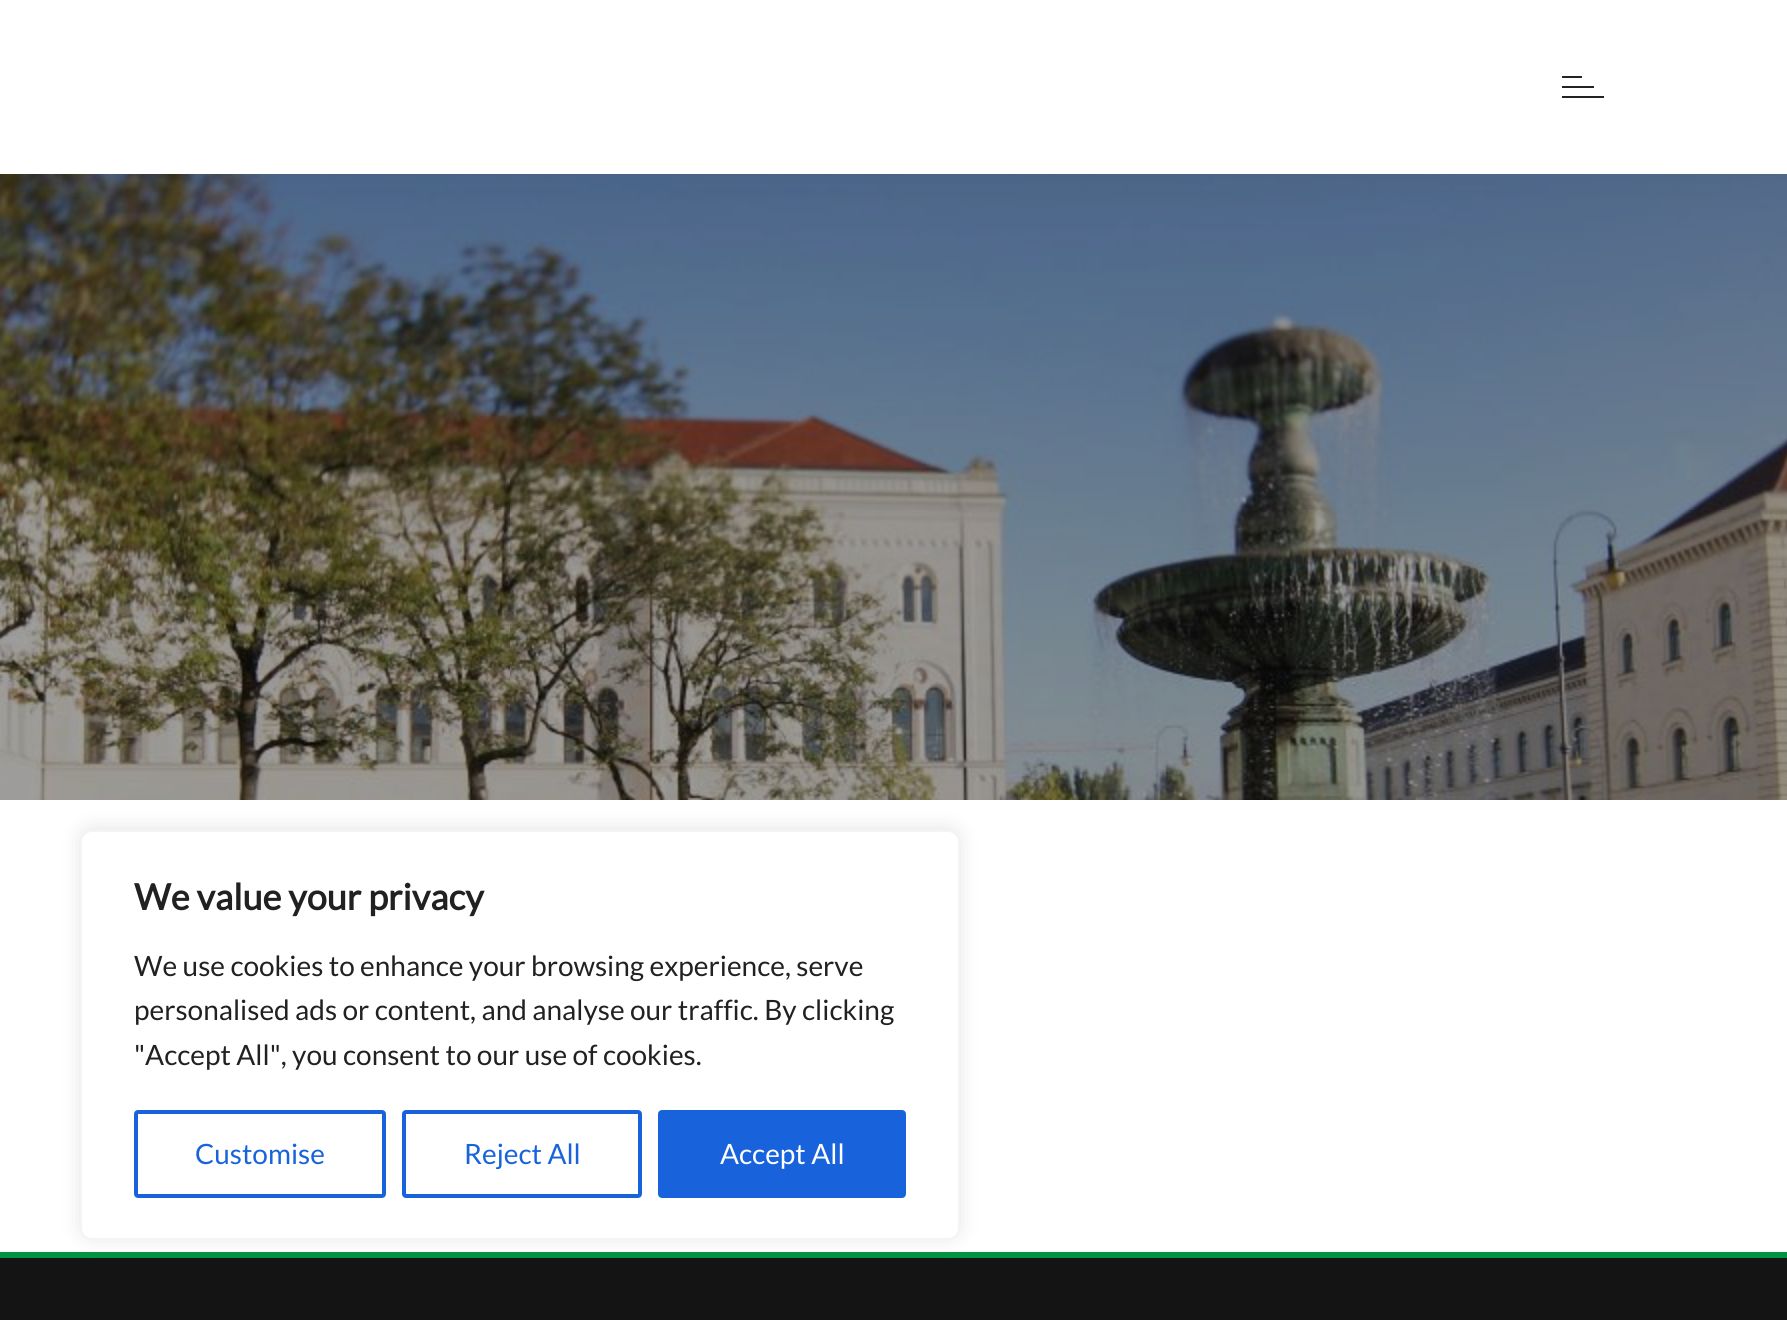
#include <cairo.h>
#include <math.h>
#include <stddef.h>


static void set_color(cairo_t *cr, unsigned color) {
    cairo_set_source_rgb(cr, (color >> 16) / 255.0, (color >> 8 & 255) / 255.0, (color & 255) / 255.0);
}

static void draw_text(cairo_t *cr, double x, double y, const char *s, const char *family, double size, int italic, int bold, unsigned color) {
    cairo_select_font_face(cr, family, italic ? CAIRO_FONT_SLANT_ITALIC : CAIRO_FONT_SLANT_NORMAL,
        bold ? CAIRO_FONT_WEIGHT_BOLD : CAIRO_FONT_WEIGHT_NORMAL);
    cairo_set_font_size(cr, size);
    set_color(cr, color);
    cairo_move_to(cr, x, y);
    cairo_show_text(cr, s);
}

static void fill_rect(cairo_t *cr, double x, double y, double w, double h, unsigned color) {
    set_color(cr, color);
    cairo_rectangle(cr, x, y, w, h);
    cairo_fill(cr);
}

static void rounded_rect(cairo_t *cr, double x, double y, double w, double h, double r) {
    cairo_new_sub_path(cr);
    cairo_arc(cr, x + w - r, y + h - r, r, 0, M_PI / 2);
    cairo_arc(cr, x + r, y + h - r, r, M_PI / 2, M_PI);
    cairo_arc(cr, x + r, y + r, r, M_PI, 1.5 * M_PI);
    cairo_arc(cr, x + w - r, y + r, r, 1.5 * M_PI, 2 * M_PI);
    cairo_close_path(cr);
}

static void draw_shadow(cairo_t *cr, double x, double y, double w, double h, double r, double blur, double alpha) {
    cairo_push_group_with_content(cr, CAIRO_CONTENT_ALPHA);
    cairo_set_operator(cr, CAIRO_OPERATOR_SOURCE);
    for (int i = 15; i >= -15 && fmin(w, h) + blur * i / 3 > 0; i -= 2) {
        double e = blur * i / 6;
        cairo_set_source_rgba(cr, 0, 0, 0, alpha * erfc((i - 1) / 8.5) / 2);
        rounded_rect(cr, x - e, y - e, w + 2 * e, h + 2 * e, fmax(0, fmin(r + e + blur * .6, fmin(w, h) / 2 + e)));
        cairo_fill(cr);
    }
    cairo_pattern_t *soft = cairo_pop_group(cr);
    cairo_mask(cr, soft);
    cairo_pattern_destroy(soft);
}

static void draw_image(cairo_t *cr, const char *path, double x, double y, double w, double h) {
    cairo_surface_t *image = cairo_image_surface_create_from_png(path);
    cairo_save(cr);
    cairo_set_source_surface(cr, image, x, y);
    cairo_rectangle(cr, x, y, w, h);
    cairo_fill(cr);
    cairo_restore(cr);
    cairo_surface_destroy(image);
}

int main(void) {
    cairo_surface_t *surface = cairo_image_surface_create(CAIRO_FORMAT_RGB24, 1787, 1320);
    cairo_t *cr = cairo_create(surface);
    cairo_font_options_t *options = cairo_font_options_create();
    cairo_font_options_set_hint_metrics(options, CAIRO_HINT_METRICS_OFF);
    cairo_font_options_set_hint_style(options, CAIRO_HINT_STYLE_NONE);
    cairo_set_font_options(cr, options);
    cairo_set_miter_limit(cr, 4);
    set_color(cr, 0xFFFFFF);
    cairo_paint(cr);
    draw_image(cr, "assets/img1.png", 0, 174, 1787, 626);
    set_color(cr, 0x222324);
    draw_shadow(cr, -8, -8, 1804, 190, 0, 15, 0.05);
    fill_rect(cr, 0, 0, 1787, 174, 0xFFFFFF);
    fill_rect(cr, 1562, 96, 42, 2, 0x222324);
    fill_rect(cr, 1562, 76, 20, 2, 0x222324);
    fill_rect(cr, 1562, 86, 32, 2, 0x222324);
    fill_rect(cr, 0, 1252, 1787, 6, 0x009440);
    fill_rect(cr, 0, 1258, 1787, 62, 0x141414);
    set_color(cr, 0xACABAB);
    draw_shadow(cr, 80, 828, 880, 410, 12, 10, 0.3);
    set_color(cr, 0xFFFFFF);
    rounded_rect(cr, 81, 831, 878, 408, 11);
    cairo_fill_preserve(cr);
    set_color(cr, 0xF4F4F4);
    cairo_stroke(cr);
    draw_text(cr, 134, 910, "We value your privacy", "Lato", 36, 0, 1, 0x212121);
    draw_text(cr, 134, 976, "We use cookies to enhance your browsing experience, serve", "Lato", 28, 0, 0, 0x212121);
    draw_text(cr, 134, 1020, "personalised ads or content, and analyse our traffic. By clicking", "Lato", 28, 0, 0, 0x212121);
    draw_text(cr, 134, 1065, "\"Accept All\", you consent to our use of cookies.", "Lato", 28, 0, 0, 0x212121);
    rounded_rect(cr, 136, 1112, 248, 84, 2);
    set_color(cr, 0x1863DC);
    cairo_set_line_width(cr, 4);
    cairo_stroke(cr);
    draw_text(cr, 195, 1164, "Customise", "Lato", 28, 0, 0, 0x1863DC);
    rounded_rect(cr, 404, 1112, 236, 84, 2);
    cairo_stroke(cr);
    draw_text(cr, 464, 1164, "Reject All", "Lato", 28, 0, 0, 0x1863DC);
    rounded_rect(cr, 660, 1112, 244, 84, 2);
    cairo_fill_preserve(cr);
    cairo_stroke(cr);
    draw_text(cr, 720, 1164, "Accept All", "Lato", 28, 0, 0, 0xFFFFFF);
    cairo_surface_write_to_png(surface, "output.png");
    cairo_font_options_destroy(options);
    cairo_destroy(cr);
    cairo_surface_destroy(surface);
    return 0;
}
